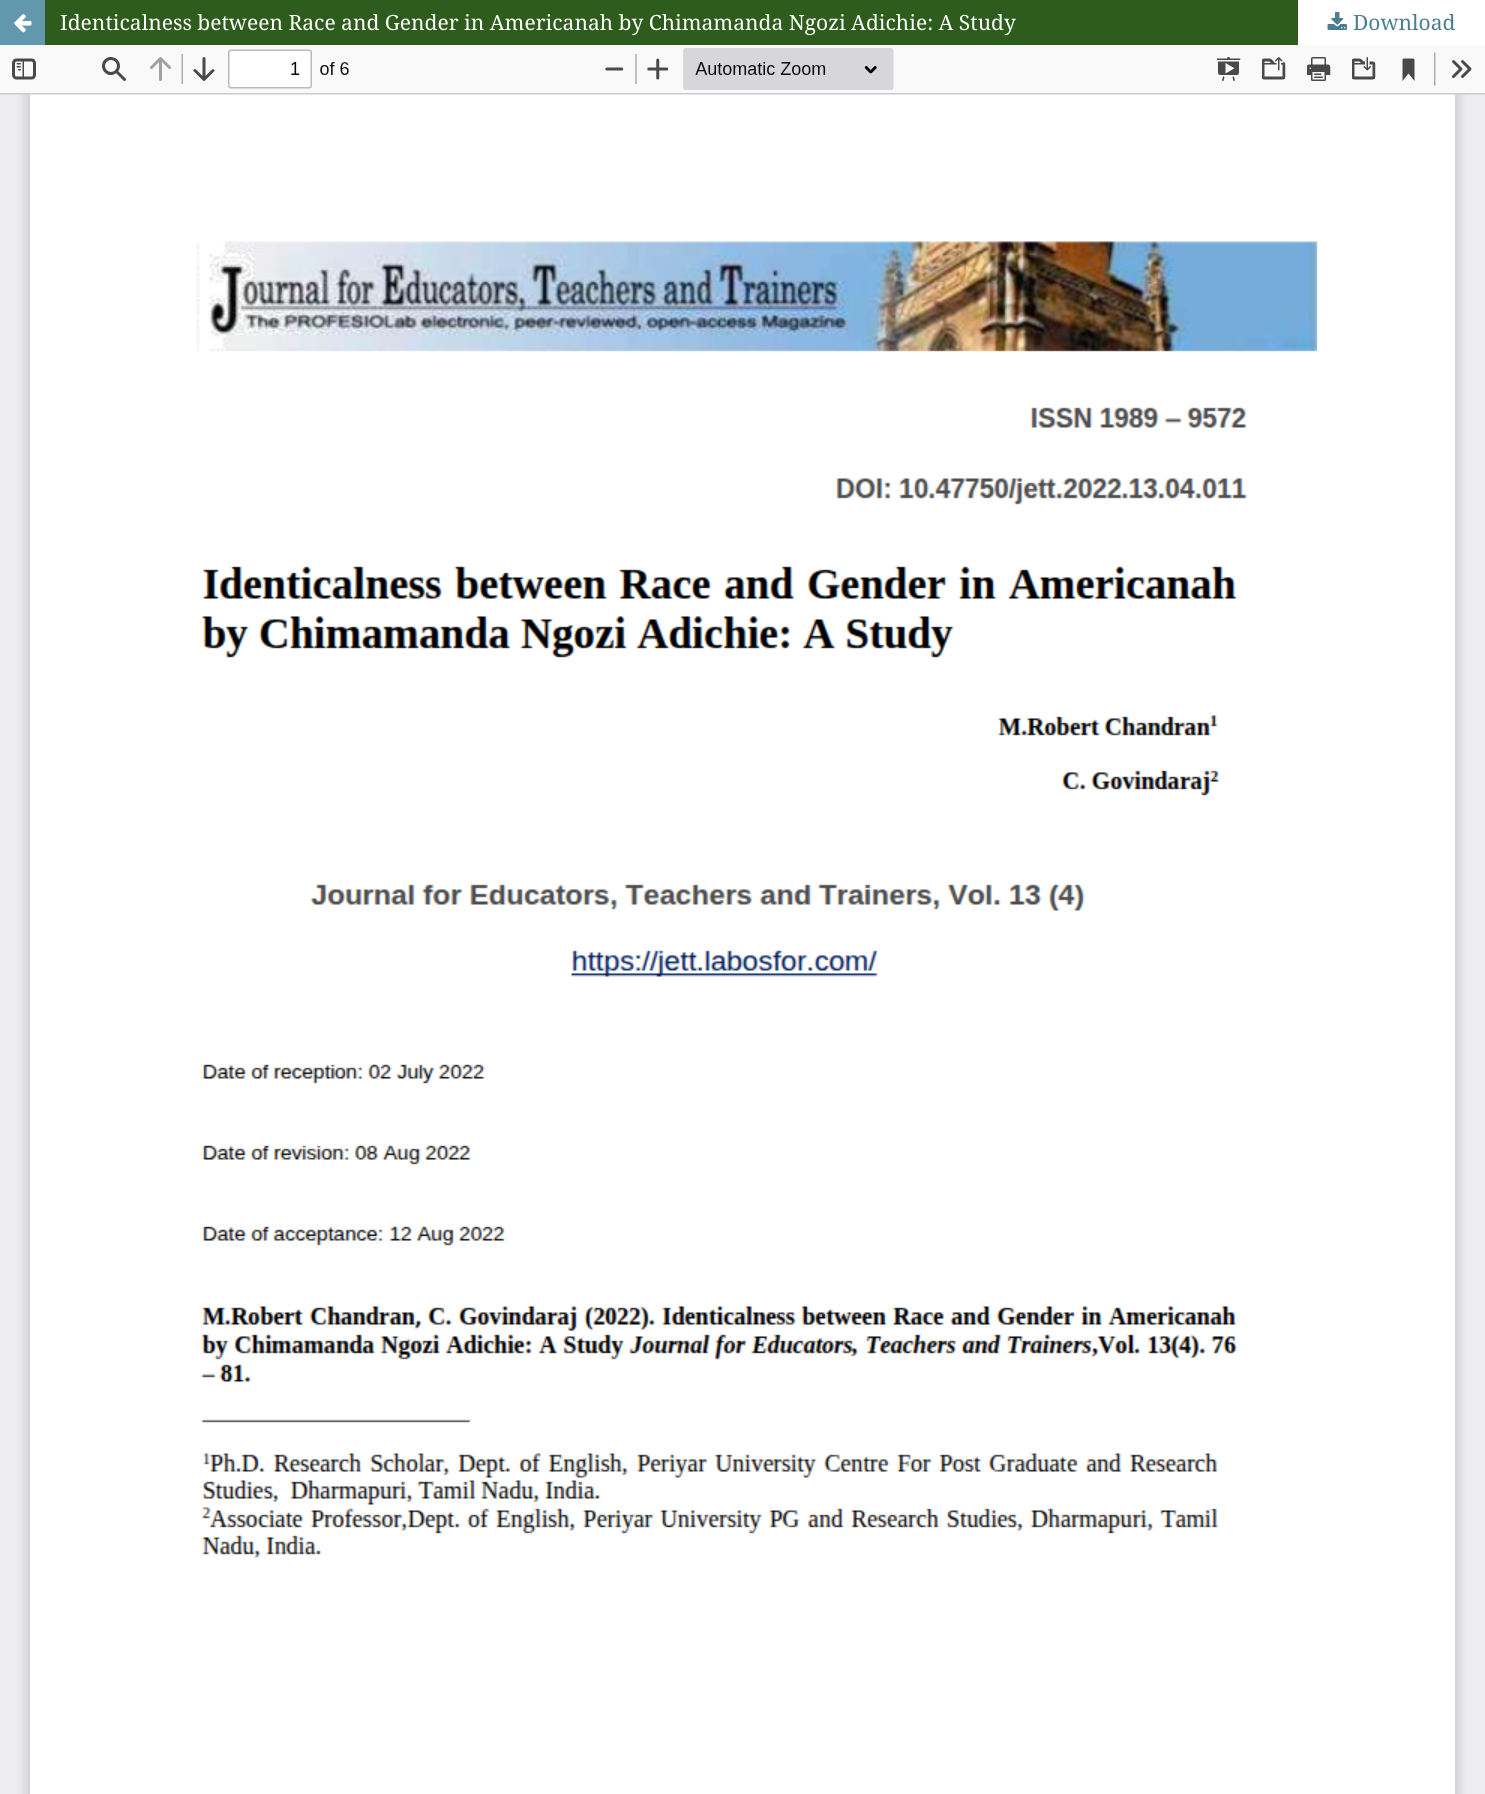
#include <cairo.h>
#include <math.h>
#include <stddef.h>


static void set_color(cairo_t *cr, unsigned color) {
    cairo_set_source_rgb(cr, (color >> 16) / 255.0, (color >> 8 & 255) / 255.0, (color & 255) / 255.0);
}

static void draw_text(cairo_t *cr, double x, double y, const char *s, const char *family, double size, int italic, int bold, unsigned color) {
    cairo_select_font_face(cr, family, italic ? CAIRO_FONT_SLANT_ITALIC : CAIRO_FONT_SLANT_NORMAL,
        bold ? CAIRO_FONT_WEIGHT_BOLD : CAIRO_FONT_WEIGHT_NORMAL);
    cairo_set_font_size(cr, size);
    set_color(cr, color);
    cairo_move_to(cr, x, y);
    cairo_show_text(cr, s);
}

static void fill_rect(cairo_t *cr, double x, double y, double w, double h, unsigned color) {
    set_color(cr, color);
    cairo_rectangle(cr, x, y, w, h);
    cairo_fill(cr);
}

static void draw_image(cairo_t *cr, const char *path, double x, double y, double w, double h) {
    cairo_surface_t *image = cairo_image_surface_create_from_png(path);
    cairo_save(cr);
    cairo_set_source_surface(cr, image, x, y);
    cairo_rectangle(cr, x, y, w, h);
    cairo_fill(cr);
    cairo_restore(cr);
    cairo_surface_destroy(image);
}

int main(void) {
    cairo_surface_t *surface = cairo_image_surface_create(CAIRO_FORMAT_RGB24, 1485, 1794);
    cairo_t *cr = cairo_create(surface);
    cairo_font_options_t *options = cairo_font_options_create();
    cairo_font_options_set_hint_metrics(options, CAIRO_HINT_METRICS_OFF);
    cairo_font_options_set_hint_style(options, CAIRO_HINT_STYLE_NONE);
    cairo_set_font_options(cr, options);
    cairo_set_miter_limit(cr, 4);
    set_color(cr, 0xFFFFFF);
    cairo_paint(cr);
    fill_rect(cr, 45, 0, 1253, 45, 0x2E5C1C);
    fill_rect(cr, 0, 0, 45, 45, 0x6298AE);
    draw_image(cr, "assets/img1.png", 14, 14, 18, 19);
    draw_text(cr, 60, 30, "Identicalness between Race and Gender in Americanah by Chimamanda Ngozi Adichie: A Study", "Noto Serif", 21, 0, 0, 0xFFFFFF);
    draw_image(cr, "assets/img2.png", 1327, 12, 20, 18);
    draw_text(cr, 1353, 30, "Download", "Noto Serif", 21, 0, 0, 0x4B7D92);
    draw_image(cr, "assets/img3.png", 0, 45, 1485, 1749);
    cairo_surface_write_to_png(surface, "output.png");
    cairo_font_options_destroy(options);
    cairo_destroy(cr);
    cairo_surface_destroy(surface);
    return 0;
}
